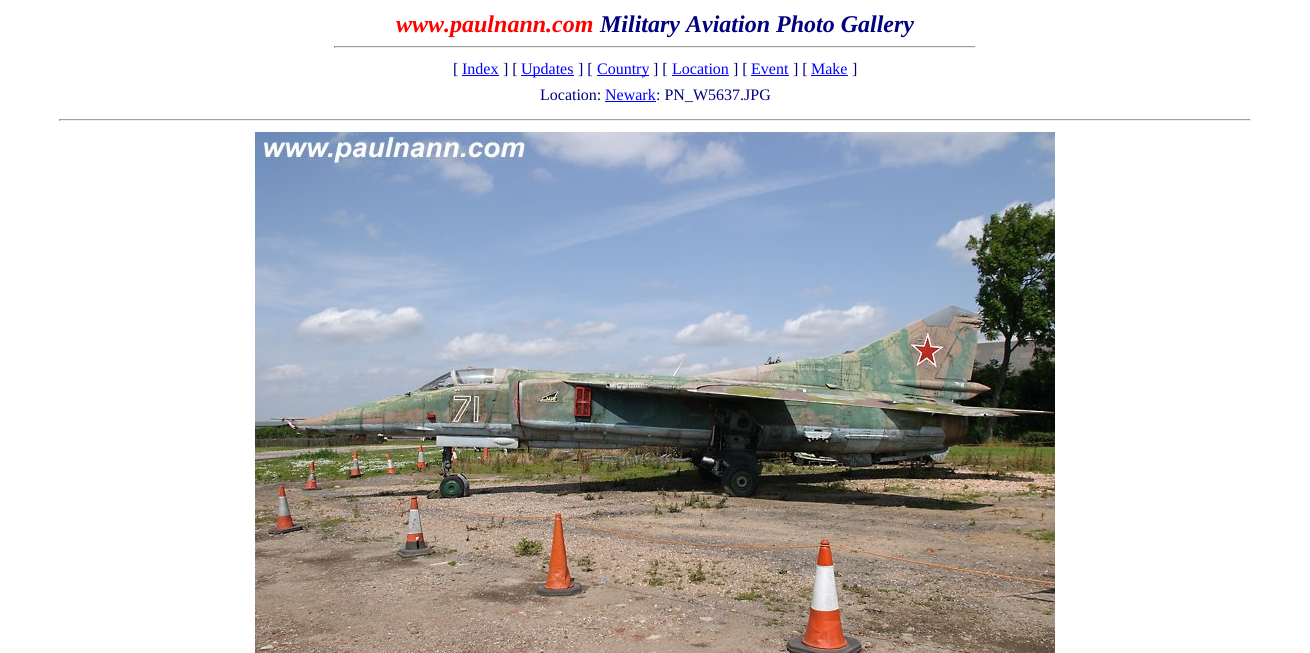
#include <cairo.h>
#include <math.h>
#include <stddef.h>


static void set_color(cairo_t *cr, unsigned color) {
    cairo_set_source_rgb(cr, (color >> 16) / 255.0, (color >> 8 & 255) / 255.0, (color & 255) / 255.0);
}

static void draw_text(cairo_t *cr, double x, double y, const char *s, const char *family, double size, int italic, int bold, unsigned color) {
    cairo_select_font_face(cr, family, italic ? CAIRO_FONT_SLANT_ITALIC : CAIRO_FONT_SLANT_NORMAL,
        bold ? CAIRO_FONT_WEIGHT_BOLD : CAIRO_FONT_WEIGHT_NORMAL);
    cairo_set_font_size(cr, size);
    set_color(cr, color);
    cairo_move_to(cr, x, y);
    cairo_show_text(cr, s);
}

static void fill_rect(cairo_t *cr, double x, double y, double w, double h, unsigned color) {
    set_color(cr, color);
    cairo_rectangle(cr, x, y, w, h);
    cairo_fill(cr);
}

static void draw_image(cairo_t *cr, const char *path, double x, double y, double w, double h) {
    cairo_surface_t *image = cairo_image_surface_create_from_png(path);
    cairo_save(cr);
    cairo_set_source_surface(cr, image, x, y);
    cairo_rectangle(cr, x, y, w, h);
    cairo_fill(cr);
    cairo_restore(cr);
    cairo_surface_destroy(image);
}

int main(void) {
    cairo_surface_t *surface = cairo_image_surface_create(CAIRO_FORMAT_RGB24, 1310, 653);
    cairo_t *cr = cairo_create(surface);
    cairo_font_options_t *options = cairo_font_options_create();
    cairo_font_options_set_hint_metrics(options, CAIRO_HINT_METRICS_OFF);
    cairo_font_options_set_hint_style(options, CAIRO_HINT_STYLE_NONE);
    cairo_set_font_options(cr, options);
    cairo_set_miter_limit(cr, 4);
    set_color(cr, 0xFFFFFF);
    cairo_paint(cr);
    draw_text(cr, 396, 32, "www.paulnann.com", "Liberation Serif", 24, 1, 1, 0xFF0000);
    draw_text(cr, 600, 32, "Military Aviation Photo Gallery", "Liberation Serif", 24, 1, 1, 0x000080);
    fill_rect(cr, 334, 46, 642, 1, 0x9F9F9F);
    fill_rect(cr, 975, 46, 1, 2, 0xEEEEEE);
    fill_rect(cr, 334, 47, 642, 1, 0xEEEEEE);
    fill_rect(cr, 334, 46, 1, 2, 0x9F9F9F);
    draw_text(cr, 453, 74, "[", "Liberation Serif", 16, 0, 0, 0x000080);
    draw_text(cr, 462, 74, "Index", "Liberation Serif", 16, 0, 0, 0x0000FF);
    fill_rect(cr, 462, 75, 37, 1, 0x0000FF);
    draw_text(cr, 503, 74, "] [", "Liberation Serif", 16, 0, 0, 0x000080);
    fill_rect(cr, 521, 75, 53, 1, 0x0000FF);
    draw_text(cr, 521, 74, "Updates", "Liberation Serif", 16, 0, 0, 0x0000FF);
    draw_text(cr, 578, 74, "] [", "Liberation Serif", 16, 0, 0, 0x000080);
    fill_rect(cr, 597, 75, 52, 1, 0x0000FF);
    draw_text(cr, 597, 74, "Country", "Liberation Serif", 16, 0, 0, 0x0000FF);
    draw_text(cr, 653, 74, "] [", "Liberation Serif", 16, 0, 0, 0x000080);
    draw_text(cr, 672, 74, "Location", "Liberation Serif", 16, 0, 0, 0x0000FF);
    fill_rect(cr, 672, 75, 57, 1, 0x0000FF);
    draw_text(cr, 733, 74, "] [", "Liberation Serif", 16, 0, 0, 0x000080);
    draw_text(cr, 751, 74, "Event", "Liberation Serif", 16, 0, 0, 0x0000FF);
    fill_rect(cr, 751, 75, 38, 1, 0x0000FF);
    draw_text(cr, 793, 74, "] [", "Liberation Serif", 16, 0, 0, 0x000080);
    draw_text(cr, 811, 74, "Make", "Liberation Serif", 16, 0, 0, 0x0000FF);
    fill_rect(cr, 811, 75, 37, 1, 0x0000FF);
    draw_text(cr, 852, 74, "]", "Liberation Serif", 16, 0, 0, 0x000080);
    draw_text(cr, 540, 100, "Location:", "Liberation Serif", 16, 0, 0, 0x000080);
    draw_text(cr, 605, 100, "Newark", "Liberation Serif", 16, 0, 0, 0x0000FF);
    fill_rect(cr, 605, 101, 51, 1, 0x0000FF);
    draw_text(cr, 656, 100, ": PN_W5637.JPG", "Liberation Serif", 16, 0, 0, 0x000080);
    fill_rect(cr, 59, 119, 1192, 1, 0x9F9F9F);
    fill_rect(cr, 1250, 119, 1, 2, 0xEEEEEE);
    fill_rect(cr, 59, 120, 1192, 1, 0xEEEEEE);
    fill_rect(cr, 59, 119, 1, 2, 0x9F9F9F);
    draw_image(cr, "assets/img1.png", 255, 132, 800, 521);
    cairo_surface_write_to_png(surface, "output.png");
    cairo_font_options_destroy(options);
    cairo_destroy(cr);
    cairo_surface_destroy(surface);
    return 0;
}
